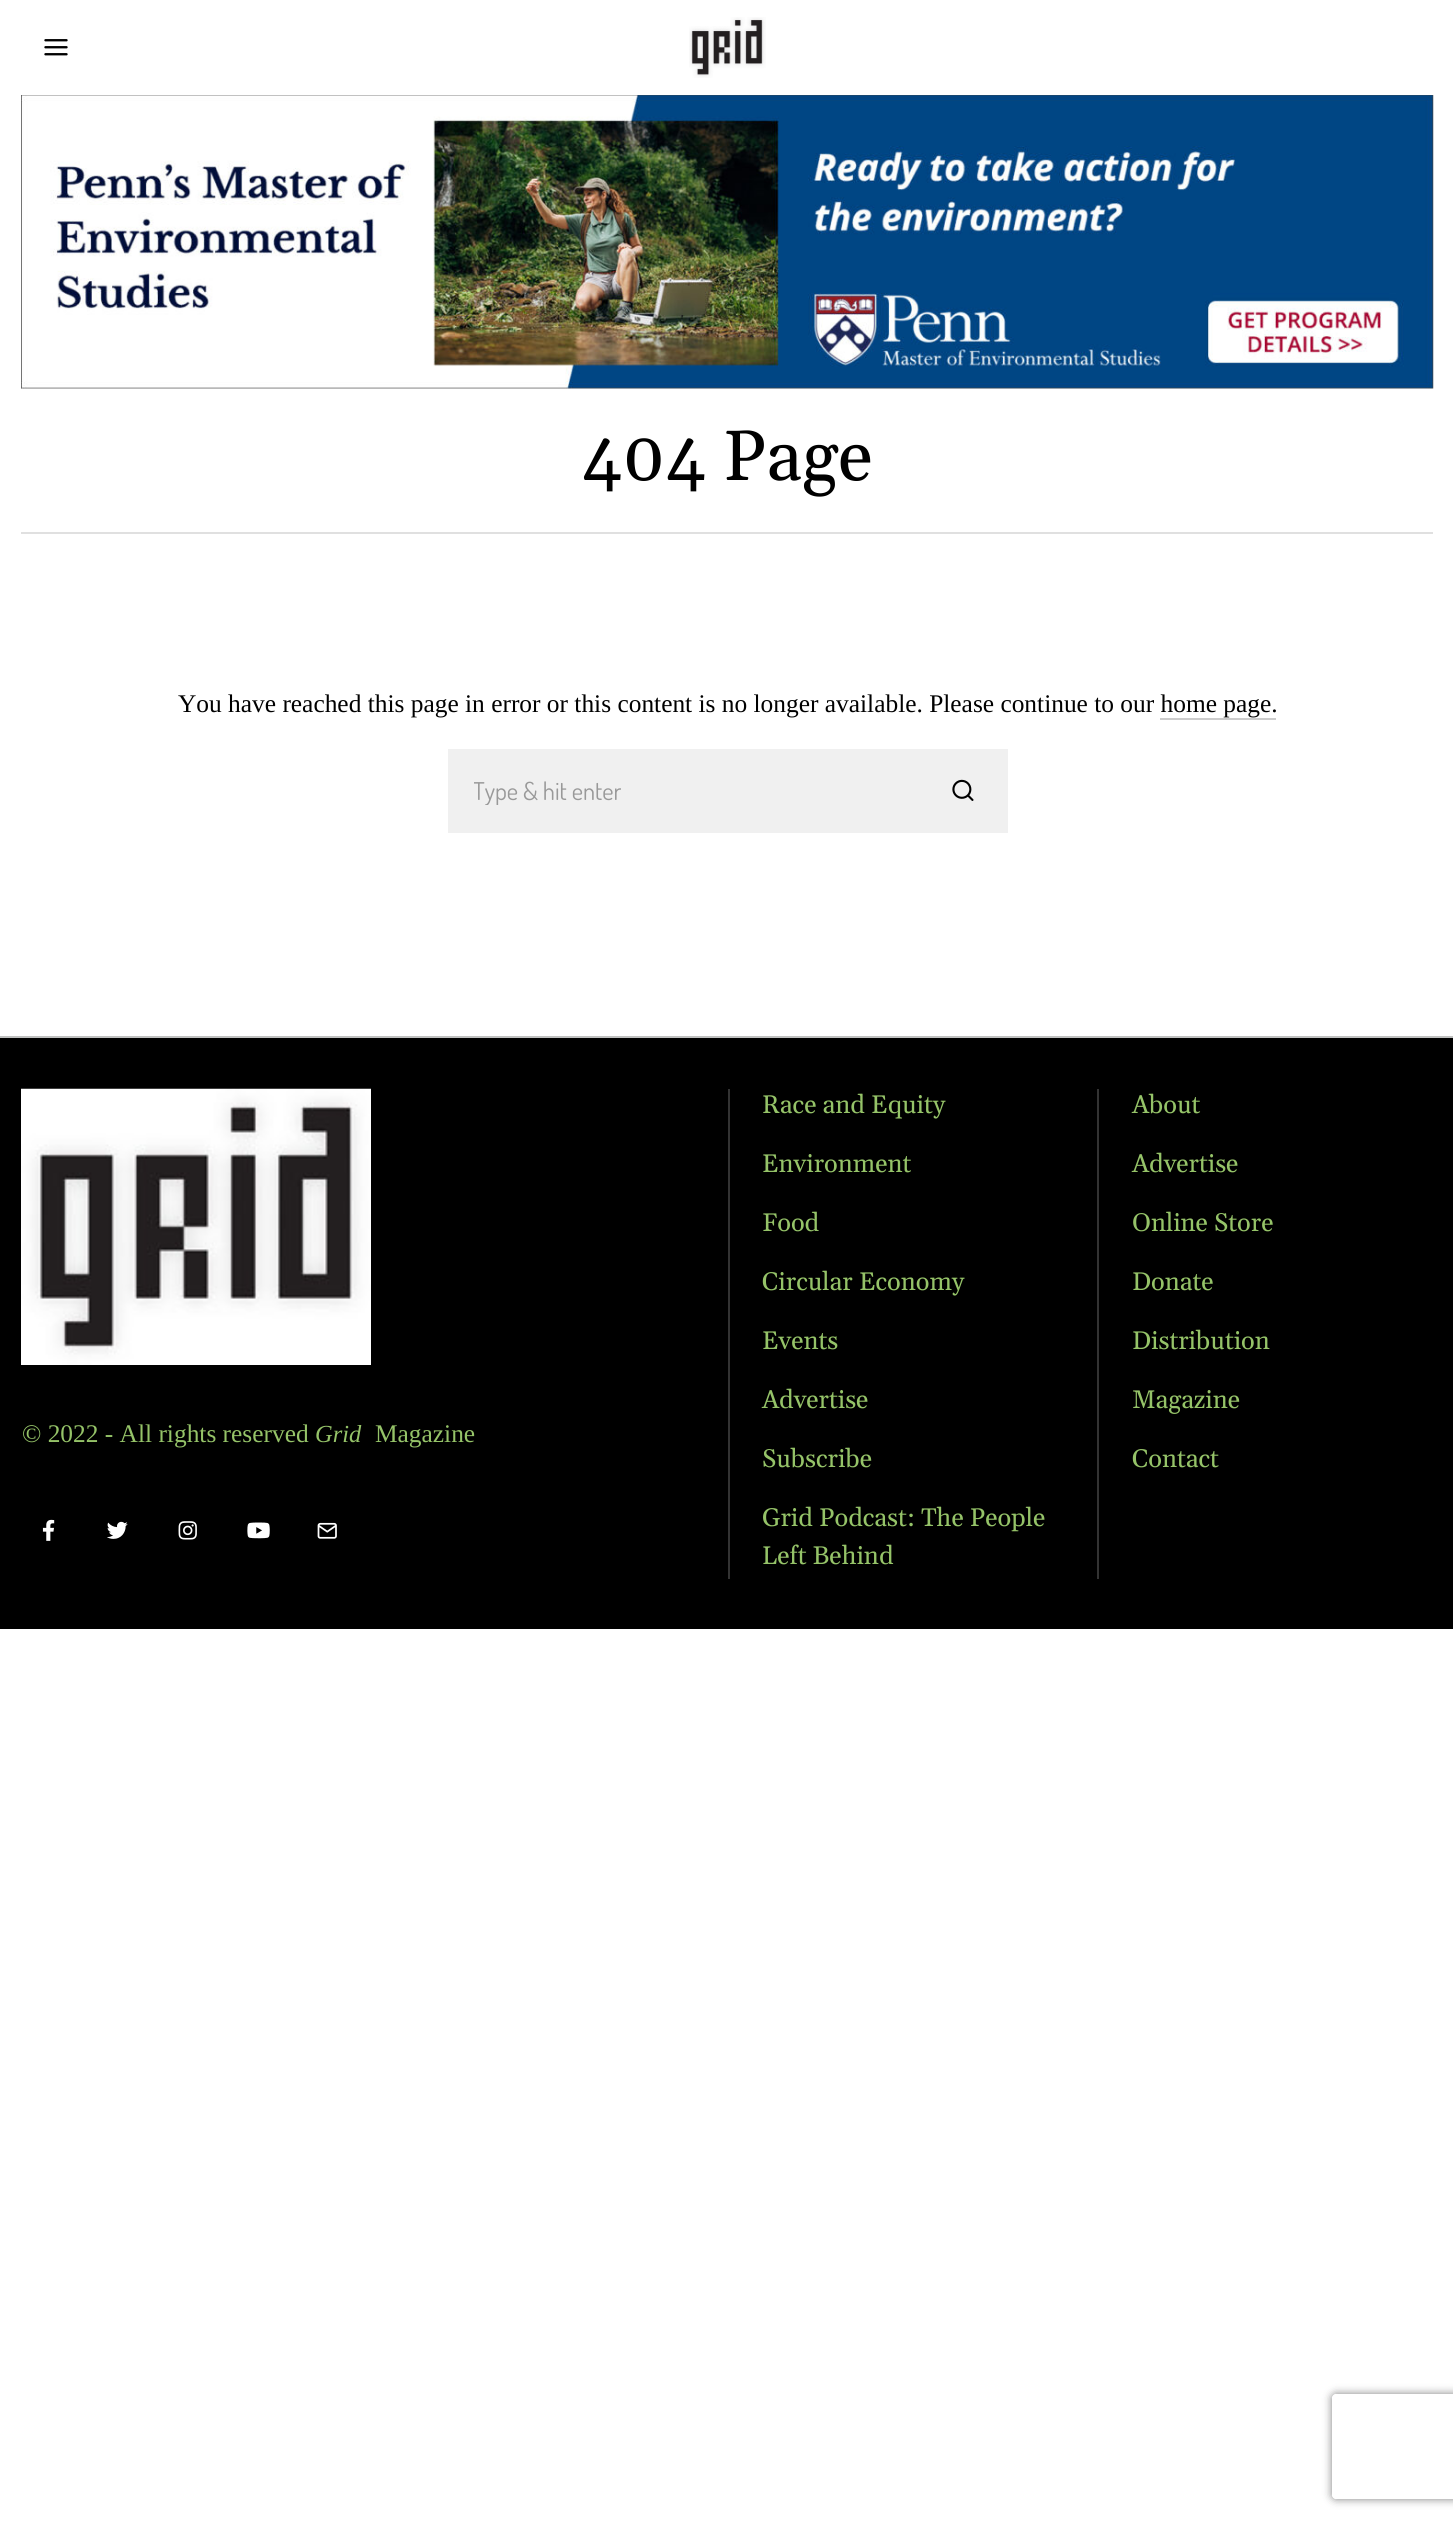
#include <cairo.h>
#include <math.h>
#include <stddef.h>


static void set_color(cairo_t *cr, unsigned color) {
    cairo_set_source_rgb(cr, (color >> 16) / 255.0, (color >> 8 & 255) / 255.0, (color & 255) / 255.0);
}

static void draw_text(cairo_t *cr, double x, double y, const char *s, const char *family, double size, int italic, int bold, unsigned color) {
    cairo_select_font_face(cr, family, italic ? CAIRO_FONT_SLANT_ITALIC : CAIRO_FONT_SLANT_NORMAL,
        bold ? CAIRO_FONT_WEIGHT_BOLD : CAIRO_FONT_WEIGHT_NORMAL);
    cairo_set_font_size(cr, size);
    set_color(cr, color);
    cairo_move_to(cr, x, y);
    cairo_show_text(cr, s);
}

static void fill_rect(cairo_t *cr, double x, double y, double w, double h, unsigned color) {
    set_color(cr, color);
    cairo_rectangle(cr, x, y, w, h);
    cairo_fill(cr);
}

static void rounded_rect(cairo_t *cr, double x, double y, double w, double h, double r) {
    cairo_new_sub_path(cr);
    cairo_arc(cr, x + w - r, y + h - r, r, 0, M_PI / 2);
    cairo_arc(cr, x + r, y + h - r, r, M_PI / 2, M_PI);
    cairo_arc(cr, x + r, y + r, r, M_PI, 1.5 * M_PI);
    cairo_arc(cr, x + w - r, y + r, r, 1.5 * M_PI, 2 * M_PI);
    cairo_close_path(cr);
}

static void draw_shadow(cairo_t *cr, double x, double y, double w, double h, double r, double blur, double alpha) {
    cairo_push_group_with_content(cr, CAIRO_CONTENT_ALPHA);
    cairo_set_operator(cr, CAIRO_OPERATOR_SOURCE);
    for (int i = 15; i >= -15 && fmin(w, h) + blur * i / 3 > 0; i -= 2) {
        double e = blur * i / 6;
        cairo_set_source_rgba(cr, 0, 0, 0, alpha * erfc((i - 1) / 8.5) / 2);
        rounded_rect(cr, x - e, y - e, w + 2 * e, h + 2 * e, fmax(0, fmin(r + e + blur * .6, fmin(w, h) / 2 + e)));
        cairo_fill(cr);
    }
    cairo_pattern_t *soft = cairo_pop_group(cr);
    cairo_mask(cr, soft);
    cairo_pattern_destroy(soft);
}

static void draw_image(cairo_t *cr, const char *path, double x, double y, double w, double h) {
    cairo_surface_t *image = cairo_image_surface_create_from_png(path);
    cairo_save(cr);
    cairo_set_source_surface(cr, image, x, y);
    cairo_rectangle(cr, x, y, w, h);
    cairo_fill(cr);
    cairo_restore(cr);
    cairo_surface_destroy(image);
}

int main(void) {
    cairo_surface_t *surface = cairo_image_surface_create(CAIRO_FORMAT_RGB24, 1453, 2523);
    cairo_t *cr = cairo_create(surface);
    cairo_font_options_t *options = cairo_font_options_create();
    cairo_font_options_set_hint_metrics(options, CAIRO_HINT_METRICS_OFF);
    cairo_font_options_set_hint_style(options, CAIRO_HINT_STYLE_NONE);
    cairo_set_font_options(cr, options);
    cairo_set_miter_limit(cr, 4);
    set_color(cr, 0xFFFFFF);
    cairo_paint(cr);
    draw_image(cr, "assets/img1.png", 44, 39, 24, 17);
    draw_image(cr, "assets/img2.png", 689, 17, 77, 61);
    draw_image(cr, "assets/img3.png", 21, 95, 1413, 294);
    fill_rect(cr, 21, 532, 1412, 2, 0xE0E0E0);
    draw_text(cr, 582, 480, "404 Page", "Gelasio", 71, 0, 0, 0x000000);
    draw_text(cr, 178, 712, "You have reached this page in error or this content is no longer available. Please continue to our home page.", "Liberation Serif", 25.4, 0, 0, 0x000000);
    fill_rect(cr, 1160, 718, 116, 2, 0xCCCCCC);
    fill_rect(cr, 448, 749, 560, 84, 0xF0F0F0);
    cairo_save(cr);
    cairo_rectangle(cr, 474, 775, 448, 30);
    cairo_clip(cr);
    draw_text(cr, 473, 800, "Type & hit enter", "Dosis", 24.5, 0, 0, 0x999999);
    cairo_restore(cr);
    draw_image(cr, "assets/img4.png", 952, 779, 22, 22);
    fill_rect(cr, 0, 1038, 1453, 591, 0x000000);
    fill_rect(cr, 0, 1036, 1453, 2, 0xC0C1C0);
    draw_image(cr, "assets/img5.png", 21, 1088, 350, 277);
    draw_text(cr, 22, 1442, "© 2022 - All rights reserved", "Liberation Serif", 25.4, 0, 0, 0x95C368);
    draw_text(cr, 315, 1442, "Grid", "Liberation Serif", 24.5, 1, 0, 0x95C368);
    draw_text(cr, 375, 1442, "Magazine", "Liberation Serif", 25.4, 0, 0, 0x95C368);
    draw_image(cr, "assets/img6.png", 42, 1519, 13, 22);
    draw_image(cr, "assets/img7.png", 107, 1521, 21, 18);
    draw_image(cr, "assets/img8.png", 178, 1521, 19, 19);
    draw_image(cr, "assets/img9.png", 247, 1522, 23, 17);
    draw_image(cr, "assets/img10.png", 317, 1522, 20, 17);
    fill_rect(cr, 728, 1089, 2, 490, 0x333333);
    draw_text(cr, 762, 1113, "Race and Equity", "Gelasio", 25.4, 0, 0, 0x95C368);
    draw_text(cr, 762, 1172, "Environment", "Gelasio", 25.4, 0, 0, 0x95C368);
    draw_text(cr, 762, 1231, "Food", "Gelasio", 25.4, 0, 0, 0x95C368);
    draw_text(cr, 762, 1290, "Circular Economy", "Gelasio", 25.4, 0, 0, 0x95C368);
    draw_text(cr, 762, 1349, "Events", "Gelasio", 25.4, 0, 0, 0x95C368);
    draw_text(cr, 762, 1408, "Advertise", "Gelasio", 25.4, 0, 0, 0x95C368);
    draw_text(cr, 762, 1467, "Subscribe", "Gelasio", 25.4, 0, 0, 0x95C368);
    draw_text(cr, 762, 1526, "Grid Podcast: The People", "Gelasio", 25.4, 0, 0, 0x95C368);
    draw_text(cr, 762, 1564, "Left Behind", "Gelasio", 25.4, 0, 0, 0x95C368);
    fill_rect(cr, 1097, 1089, 2, 490, 0x333333);
    draw_text(cr, 1132, 1113, "About", "Gelasio", 25.4, 0, 0, 0x95C368);
    draw_text(cr, 1132, 1172, "Advertise", "Gelasio", 25.4, 0, 0, 0x95C368);
    draw_text(cr, 1132, 1231, "Online Store", "Gelasio", 25.4, 0, 0, 0x95C368);
    draw_text(cr, 1132, 1290, "Donate", "Gelasio", 25.4, 0, 0, 0x95C368);
    draw_text(cr, 1132, 1349, "Distribution", "Gelasio", 25.4, 0, 0, 0x95C368);
    draw_text(cr, 1132, 1408, "Magazine", "Gelasio", 25.4, 0, 0, 0x95C368);
    draw_text(cr, 1132, 1467, "Contact", "Gelasio", 25.4, 0, 0, 0x95C368);
    cairo_save(cr);
    cairo_set_fill_rule(cr, CAIRO_FILL_RULE_EVEN_ODD);
    cairo_new_path(cr);
    cairo_move_to(cr, 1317, 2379);
    cairo_line_to(cr, 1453, 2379);
    cairo_line_to(cr, 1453, 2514);
    cairo_line_to(cr, 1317, 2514);
    cairo_close_path(cr);
    cairo_move_to(cr, 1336, 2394);
    cairo_line_to(cr, 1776, 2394);
    cairo_curve_to(cr, 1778, 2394, 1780, 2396, 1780, 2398);
    cairo_line_to(cr, 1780, 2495);
    cairo_curve_to(cr, 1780, 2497, 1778, 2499, 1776, 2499);
    cairo_line_to(cr, 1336, 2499);
    cairo_curve_to(cr, 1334, 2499, 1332, 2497, 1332, 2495);
    cairo_line_to(cr, 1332, 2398);
    cairo_curve_to(cr, 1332, 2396, 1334, 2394, 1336, 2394);
    cairo_close_path(cr);
    cairo_clip(cr);
    set_color(cr, 0x808080);
    draw_shadow(cr, 1332, 2394, 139, 105, 4, 4.5, 1);
    cairo_restore(cr);
    cairo_surface_write_to_png(surface, "output.png");
    cairo_font_options_destroy(options);
    cairo_destroy(cr);
    cairo_surface_destroy(surface);
    return 0;
}
